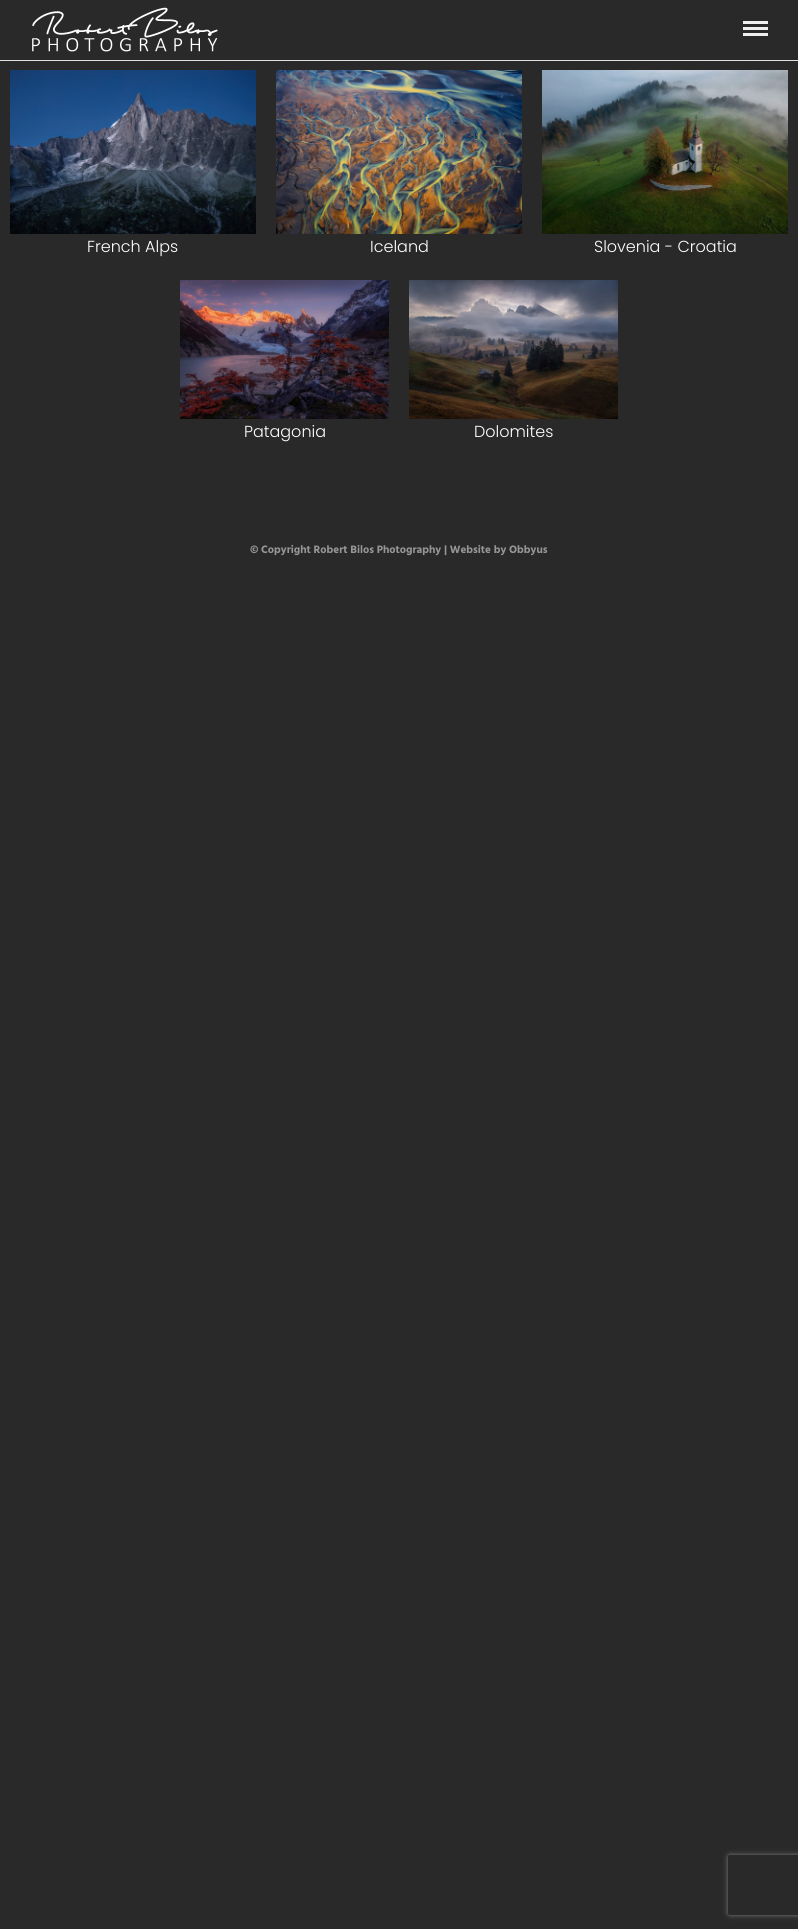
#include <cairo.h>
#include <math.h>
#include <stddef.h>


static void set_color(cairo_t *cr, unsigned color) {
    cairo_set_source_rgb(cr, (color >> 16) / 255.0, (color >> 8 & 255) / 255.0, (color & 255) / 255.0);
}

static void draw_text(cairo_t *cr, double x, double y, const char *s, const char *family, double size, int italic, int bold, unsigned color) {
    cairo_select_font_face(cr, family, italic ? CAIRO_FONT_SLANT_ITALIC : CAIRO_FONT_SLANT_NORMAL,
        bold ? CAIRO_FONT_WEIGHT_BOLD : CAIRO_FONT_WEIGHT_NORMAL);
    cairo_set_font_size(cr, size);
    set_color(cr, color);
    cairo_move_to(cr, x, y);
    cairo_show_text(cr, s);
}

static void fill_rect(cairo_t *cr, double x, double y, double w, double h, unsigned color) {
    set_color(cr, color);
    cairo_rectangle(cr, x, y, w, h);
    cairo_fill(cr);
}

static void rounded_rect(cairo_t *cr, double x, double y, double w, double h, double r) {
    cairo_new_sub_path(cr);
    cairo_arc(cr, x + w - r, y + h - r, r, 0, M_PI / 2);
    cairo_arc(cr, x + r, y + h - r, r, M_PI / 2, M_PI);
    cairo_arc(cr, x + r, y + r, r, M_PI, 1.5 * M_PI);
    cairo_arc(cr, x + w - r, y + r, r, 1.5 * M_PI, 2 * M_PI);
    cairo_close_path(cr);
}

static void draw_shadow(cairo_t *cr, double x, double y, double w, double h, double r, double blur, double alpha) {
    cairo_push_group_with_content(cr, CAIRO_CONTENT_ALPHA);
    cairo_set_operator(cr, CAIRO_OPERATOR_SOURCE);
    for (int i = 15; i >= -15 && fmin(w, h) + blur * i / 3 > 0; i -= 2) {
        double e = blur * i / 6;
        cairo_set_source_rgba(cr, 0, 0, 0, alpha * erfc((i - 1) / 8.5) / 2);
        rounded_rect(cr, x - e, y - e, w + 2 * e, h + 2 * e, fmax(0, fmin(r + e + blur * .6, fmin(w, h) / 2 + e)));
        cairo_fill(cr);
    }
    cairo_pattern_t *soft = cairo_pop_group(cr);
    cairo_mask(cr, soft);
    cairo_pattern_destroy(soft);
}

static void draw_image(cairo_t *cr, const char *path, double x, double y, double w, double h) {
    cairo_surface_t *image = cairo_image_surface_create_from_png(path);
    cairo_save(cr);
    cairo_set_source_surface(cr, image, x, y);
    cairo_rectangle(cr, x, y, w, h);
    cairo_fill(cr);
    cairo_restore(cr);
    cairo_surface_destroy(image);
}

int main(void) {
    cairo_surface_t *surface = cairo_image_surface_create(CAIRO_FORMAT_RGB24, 798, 1929);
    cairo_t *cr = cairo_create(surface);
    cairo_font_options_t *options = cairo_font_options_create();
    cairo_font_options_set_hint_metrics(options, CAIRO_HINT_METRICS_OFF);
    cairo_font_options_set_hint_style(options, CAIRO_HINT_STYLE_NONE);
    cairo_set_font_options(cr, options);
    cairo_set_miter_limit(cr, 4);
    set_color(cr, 0x292929);
    cairo_paint(cr);
    fill_rect(cr, 0, 60, 798, 1, 0xE1E1E1);
    draw_image(cr, "assets/img1.png", 32, 7, 186, 45);
    fill_rect(cr, 743, 21, 25, 3, 0xEFEFEF);
    fill_rect(cr, 743, 27, 25, 3, 0xEFEFEF);
    fill_rect(cr, 743, 33, 25, 3, 0xEFEFEF);
    draw_image(cr, "assets/img2.png", 10, 70, 246, 164);
    draw_text(cr, 87, 252, "French Alps", "Poppins Light", 16, 0, 0, 0xFFFFFF);
    draw_image(cr, "assets/img3.png", 276, 70, 246, 164);
    draw_text(cr, 370, 252, "Iceland", "Poppins Light", 16, 0, 0, 0xFFFFFF);
    draw_image(cr, "assets/img4.png", 542, 70, 246, 164);
    draw_text(cr, 594, 252, "Slovenia - Croatia", "Poppins Light", 16, 0, 0, 0xFFFFFF);
    draw_image(cr, "assets/img5.png", 180, 280, 209, 139);
    draw_text(cr, 244, 437, "Patagonia", "Poppins Light", 16, 0, 0, 0xFFFFFF);
    draw_image(cr, "assets/img6.png", 409, 280, 209, 139);
    draw_text(cr, 474, 437, "Dolomites", "Poppins Light", 16, 0, 0, 0xFFFFFF);
    draw_text(cr, 250, 553, "© Copyright Robert Bilos Photography | Website by Obbyus", "Hind", 11, 0, 1, 0x969696);
    cairo_save(cr);
    cairo_set_fill_rule(cr, CAIRO_FILL_RULE_EVEN_ODD);
    cairo_new_path(cr);
    cairo_move_to(cr, 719, 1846);
    cairo_line_to(cr, 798, 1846);
    cairo_line_to(cr, 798, 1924);
    cairo_line_to(cr, 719, 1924);
    cairo_close_path(cr);
    cairo_move_to(cr, 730, 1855);
    cairo_line_to(cr, 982, 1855);
    cairo_curve_to(cr, 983, 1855, 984, 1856, 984, 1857);
    cairo_line_to(cr, 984, 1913);
    cairo_curve_to(cr, 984, 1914, 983, 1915, 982, 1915);
    cairo_line_to(cr, 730, 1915);
    cairo_curve_to(cr, 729, 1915, 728, 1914, 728, 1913);
    cairo_line_to(cr, 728, 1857);
    cairo_curve_to(cr, 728, 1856, 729, 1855, 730, 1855);
    cairo_close_path(cr);
    cairo_clip(cr);
    set_color(cr, 0x808080);
    draw_shadow(cr, 728, 1855, 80, 60, 2, 2.5, 1);
    cairo_restore(cr);
    cairo_surface_write_to_png(surface, "output.png");
    cairo_font_options_destroy(options);
    cairo_destroy(cr);
    cairo_surface_destroy(surface);
    return 0;
}
